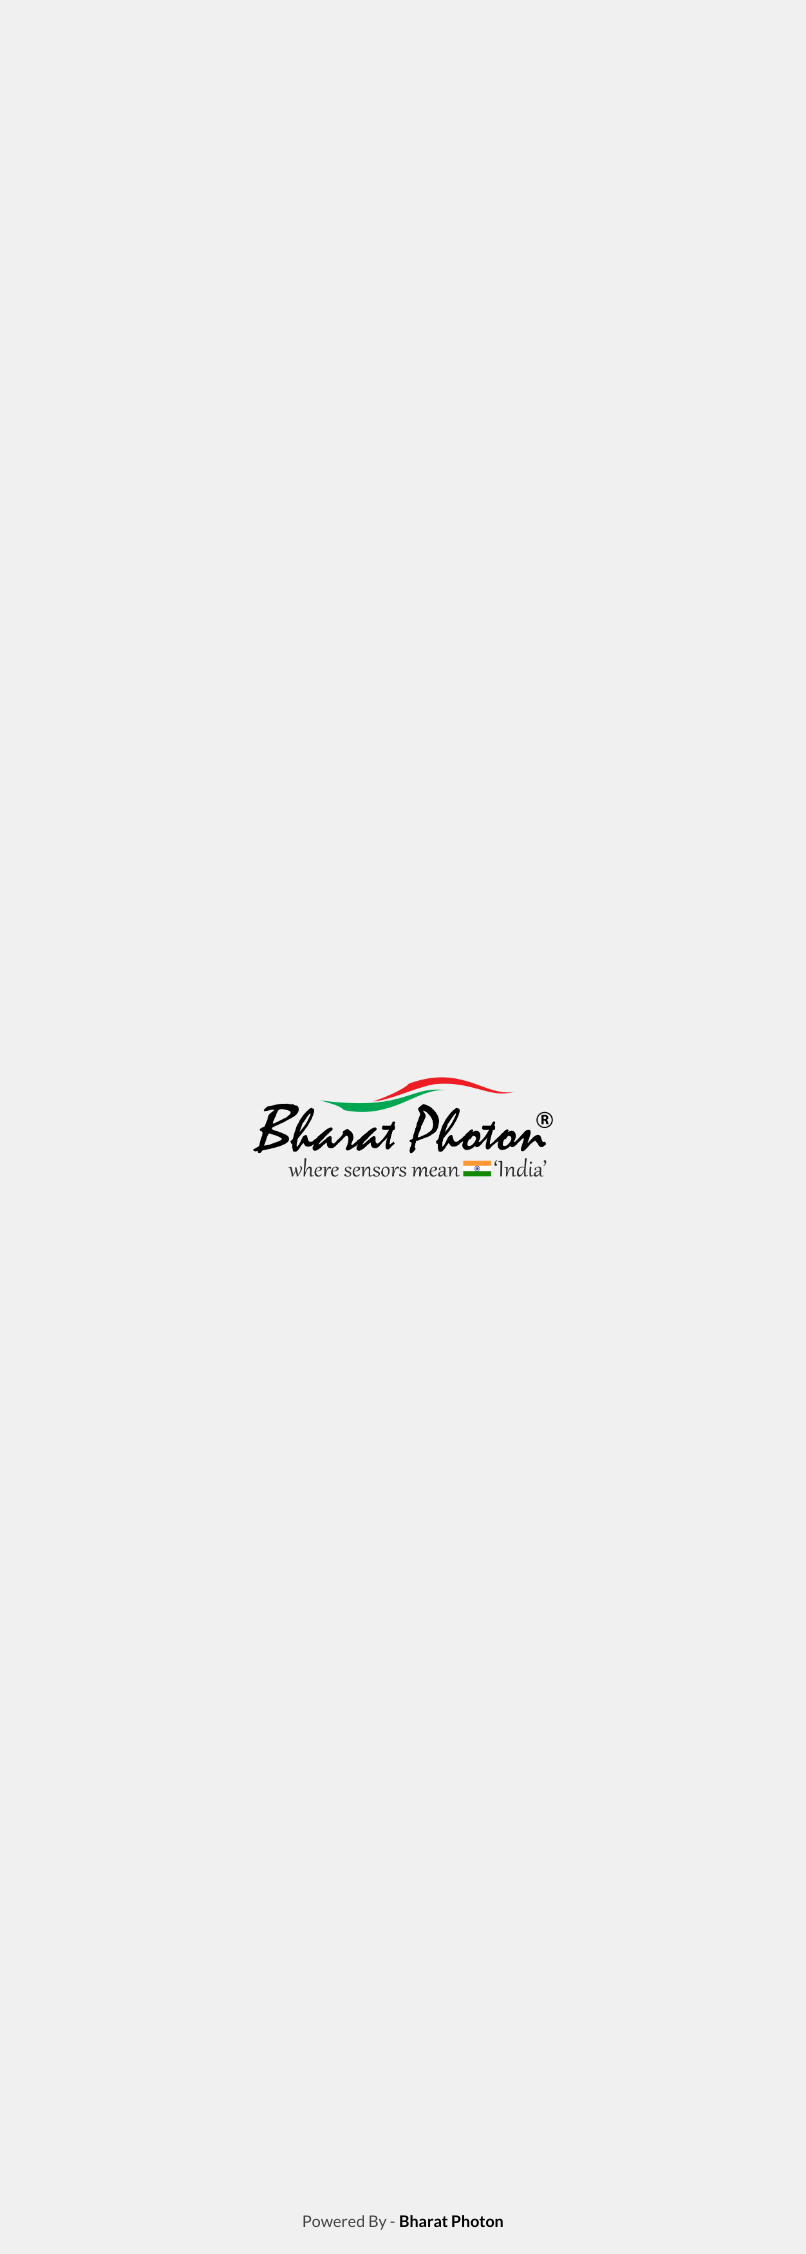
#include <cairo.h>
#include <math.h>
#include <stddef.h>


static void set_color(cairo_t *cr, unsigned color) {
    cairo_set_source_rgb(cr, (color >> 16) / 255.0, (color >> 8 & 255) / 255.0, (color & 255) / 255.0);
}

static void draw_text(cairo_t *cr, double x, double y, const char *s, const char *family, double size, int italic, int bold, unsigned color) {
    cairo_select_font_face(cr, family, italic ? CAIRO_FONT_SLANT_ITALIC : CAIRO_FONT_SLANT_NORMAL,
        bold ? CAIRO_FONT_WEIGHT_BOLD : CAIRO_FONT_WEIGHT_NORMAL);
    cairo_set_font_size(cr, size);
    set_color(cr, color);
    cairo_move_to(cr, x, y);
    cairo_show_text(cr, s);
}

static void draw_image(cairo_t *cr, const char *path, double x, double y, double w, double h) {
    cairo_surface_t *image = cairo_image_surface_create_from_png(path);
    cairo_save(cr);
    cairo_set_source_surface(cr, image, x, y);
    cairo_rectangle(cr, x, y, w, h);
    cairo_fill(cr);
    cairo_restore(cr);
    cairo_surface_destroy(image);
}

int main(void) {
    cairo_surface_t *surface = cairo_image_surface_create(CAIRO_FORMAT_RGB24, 806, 2254);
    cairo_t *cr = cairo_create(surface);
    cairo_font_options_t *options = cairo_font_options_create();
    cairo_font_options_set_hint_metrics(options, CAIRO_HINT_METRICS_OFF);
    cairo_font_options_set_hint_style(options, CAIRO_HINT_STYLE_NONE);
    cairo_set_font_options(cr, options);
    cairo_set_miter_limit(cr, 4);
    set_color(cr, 0xF0F0F0);
    cairo_paint(cr);
    draw_image(cr, "assets/img1.png", 253, 1077, 300, 100);
    draw_text(cr, 302, 2227, "Powered By -", "Lato", 16, 0, 0, 0x444444);
    draw_text(cr, 399, 2227, "Bharat Photon", "Lato", 16, 0, 1, 0x000000);
    cairo_surface_write_to_png(surface, "output.png");
    cairo_font_options_destroy(options);
    cairo_destroy(cr);
    cairo_surface_destroy(surface);
    return 0;
}
